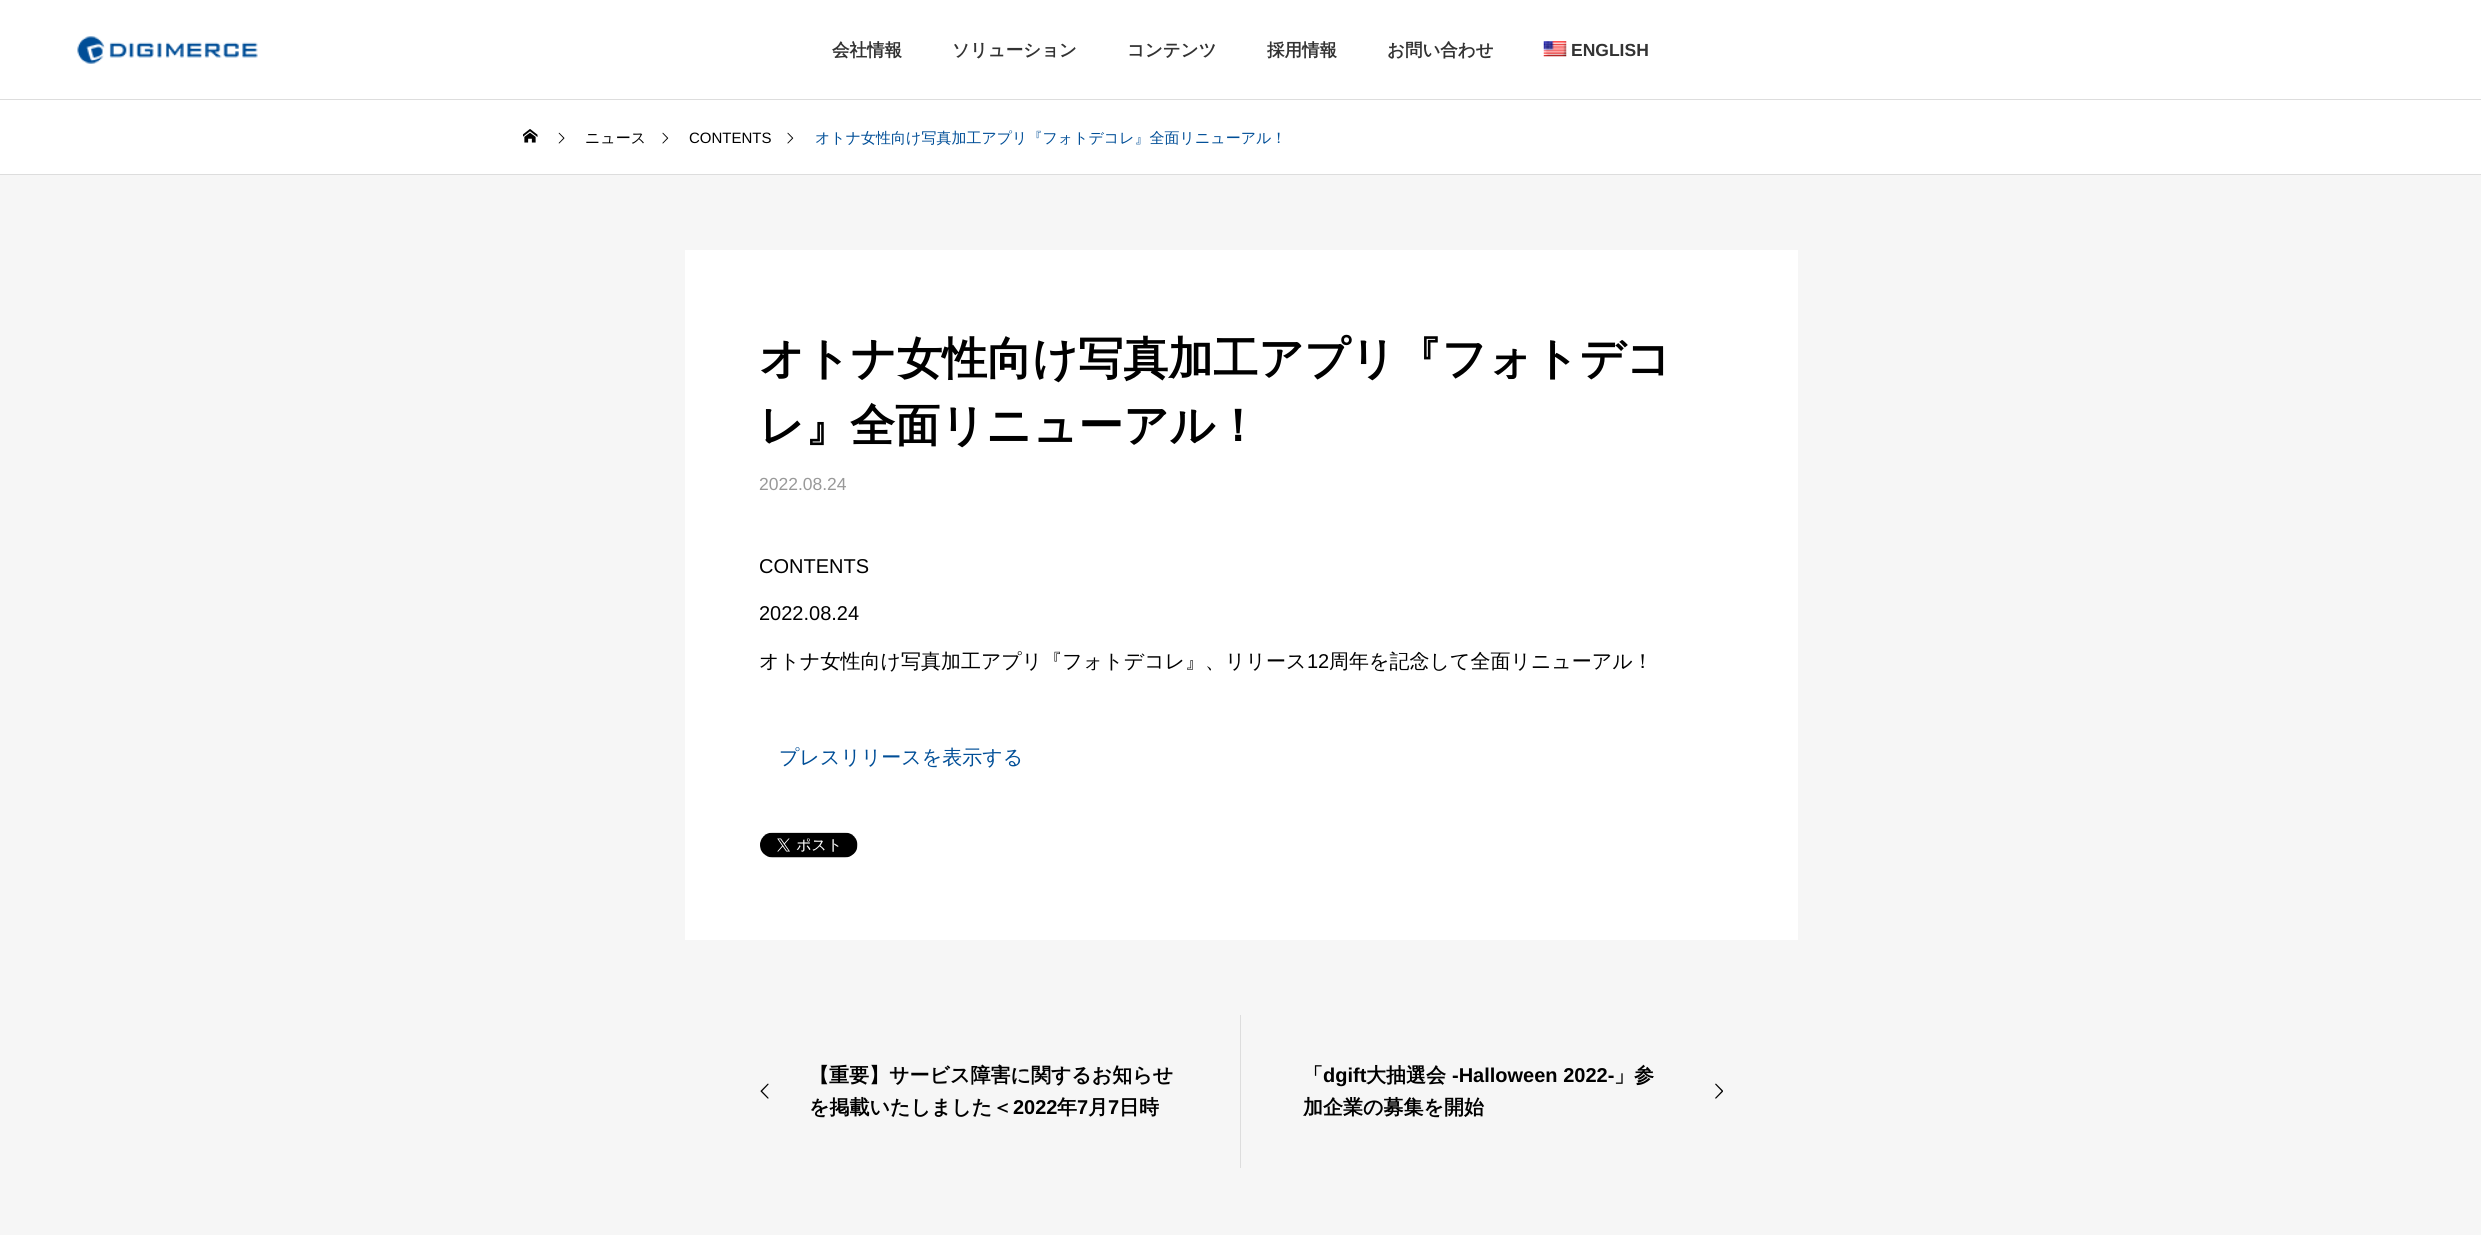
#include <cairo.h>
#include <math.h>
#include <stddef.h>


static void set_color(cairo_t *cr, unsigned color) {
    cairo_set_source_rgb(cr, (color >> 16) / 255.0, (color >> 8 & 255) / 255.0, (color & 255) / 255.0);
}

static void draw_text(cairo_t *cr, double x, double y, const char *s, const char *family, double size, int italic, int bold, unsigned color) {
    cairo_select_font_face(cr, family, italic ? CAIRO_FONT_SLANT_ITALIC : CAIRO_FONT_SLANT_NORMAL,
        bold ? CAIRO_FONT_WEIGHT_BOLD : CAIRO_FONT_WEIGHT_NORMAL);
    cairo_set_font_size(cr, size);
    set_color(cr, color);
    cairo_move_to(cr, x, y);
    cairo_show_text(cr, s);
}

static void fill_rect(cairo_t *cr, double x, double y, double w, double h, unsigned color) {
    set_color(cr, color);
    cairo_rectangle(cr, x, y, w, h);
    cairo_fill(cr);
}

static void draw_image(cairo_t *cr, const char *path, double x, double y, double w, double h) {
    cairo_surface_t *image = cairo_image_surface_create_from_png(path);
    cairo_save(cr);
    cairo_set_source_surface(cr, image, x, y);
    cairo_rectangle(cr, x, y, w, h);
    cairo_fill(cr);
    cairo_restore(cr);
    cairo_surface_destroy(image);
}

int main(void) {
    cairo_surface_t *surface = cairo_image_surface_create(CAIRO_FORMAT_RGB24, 2481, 1235);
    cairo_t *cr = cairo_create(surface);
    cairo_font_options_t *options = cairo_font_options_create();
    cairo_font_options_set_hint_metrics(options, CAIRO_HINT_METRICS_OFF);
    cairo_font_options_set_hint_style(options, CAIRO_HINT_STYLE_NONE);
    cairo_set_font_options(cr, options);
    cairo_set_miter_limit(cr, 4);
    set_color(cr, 0xFFFFFF);
    cairo_paint(cr);
    draw_image(cr, "assets/img1.png", 77, 36, 181, 28);
    draw_text(cr, 832, 56, "会社情報", "WenQuanYi Zen Hei", 17.5, 0, 1, 0x333333);
    draw_text(cr, 952, 56, "ソリューション", "WenQuanYi Zen Hei", 17.5, 0, 1, 0x333333);
    draw_text(cr, 1127, 56, "コンテンツ", "WenQuanYi Zen Hei", 17.5, 0, 1, 0x333333);
    draw_text(cr, 1267, 56, "採用情報", "WenQuanYi Zen Hei", 17.5, 0, 1, 0x333333);
    draw_text(cr, 1387, 56, "お問い合わせ", "WenQuanYi Zen Hei", 17.5, 0, 1, 0x333333);
    draw_image(cr, "assets/img2.png", 1543, 41, 24, 16);
    draw_text(cr, 1571, 56, "ENGLISH", "Liberation Sans", 17.5, 0, 1, 0x333333);
    fill_rect(cr, 0, 99, 2481, 1, 0xDDDDDD);
    fill_rect(cr, 0, 174, 2481, 1, 0xDDDDDD);
    draw_image(cr, "assets/img3.png", 523, 129, 15, 14);
    draw_image(cr, "assets/img4.png", 558, 132, 7, 12);
    draw_text(cr, 585, 143, "ニュース", "WenQuanYi Zen Hei Medium", 15, 0, 0, 0x000000);
    draw_image(cr, "assets/img5.png", 662, 132, 7, 12);
    draw_text(cr, 689, 143, "CONTENTS", "Liberation Sans", 15, 0, 0, 0x000000);
    draw_image(cr, "assets/img5.png", 787, 132, 7, 12);
    draw_text(cr, 815, 143, "オトナ女性向け写真加工アプリ『フォトデコレ』全面リニューアル！", "WenQuanYi Zen Hei Medium", 15, 0, 0, 0x004E97);
    fill_rect(cr, 0, 175, 2481, 1060, 0xF6F6F6);
    fill_rect(cr, 685, 250, 1113, 690, 0xFFFFFF);
    draw_text(cr, 759, 374, "オトナ女性向け写真加工アプリ『フォトデコ", "WenQuanYi Zen Hei", 45, 0, 1, 0x000000);
    draw_text(cr, 759, 441, "レ』全面リニューアル！", "WenQuanYi Zen Hei", 45, 0, 1, 0x000000);
    draw_text(cr, 759, 490, "2022.08.24", "Liberation Sans", 17.5, 0, 0, 0x999999);
    draw_text(cr, 759, 573, "CONTENTS", "Liberation Sans", 20, 0, 0, 0x000000);
    draw_text(cr, 759, 620, "2022.08.24", "Liberation Sans", 20, 0, 0, 0x000000);
    draw_text(cr, 759, 668, "オトナ女性向け写真加工アプリ『フォトデコレ』、リリース", "WenQuanYi Zen Hei Medium", 20, 0, 0, 0x000000);
    draw_text(cr, 1307, 668, "12", "Liberation Sans", 20, 0, 0, 0x000000);
    draw_text(cr, 1329, 668, "周年を記念して全面リニューアル！", "WenQuanYi Zen Hei Medium", 20, 0, 0, 0x000000);
    draw_text(cr, 779, 764, "プレスリリースを表示する", "WenQuanYi Zen Hei Medium", 20, 0, 0, 0x004E97);
    draw_image(cr, "assets/img6.png", 760, 832, 98, 26);
    fill_rect(cr, 1240, 1015, 1, 153, 0xDDDDDD);
    draw_image(cr, "assets/img7.png", 760, 1083, 9, 16);
    draw_text(cr, 809, 1082, "【重要】サービス障害に関するお知らせ", "WenQuanYi Zen Hei", 20, 0, 1, 0x000000);
    draw_text(cr, 809, 1114, "を掲載いたしました＜", "WenQuanYi Zen Hei", 20, 0, 1, 0x000000);
    draw_text(cr, 1013, 1114, "2022", "Liberation Sans", 20, 0, 1, 0x000000);
    draw_text(cr, 1057, 1114, "年", "WenQuanYi Zen Hei", 20, 0, 1, 0x000000);
    draw_text(cr, 1077, 1114, "7", "Liberation Sans", 20, 0, 1, 0x000000);
    draw_text(cr, 1088, 1114, "月", "WenQuanYi Zen Hei", 20, 0, 1, 0x000000);
    draw_text(cr, 1108, 1114, "7", "Liberation Sans", 20, 0, 1, 0x000000);
    draw_text(cr, 1119, 1114, "日時", "WenQuanYi Zen Hei", 20, 0, 1, 0x000000);
    draw_text(cr, 1303, 1082, "「", "WenQuanYi Zen Hei", 20, 0, 1, 0x000000);
    draw_text(cr, 1323, 1082, "dgift", "Liberation Sans", 20, 0, 1, 0x000000);
    draw_text(cr, 1366, 1082, "大抽選会", "WenQuanYi Zen Hei", 20, 0, 1, 0x000000);
    draw_text(cr, 1452, 1082, "-Halloween 2022-", "Liberation Sans", 20, 0, 1, 0x000000);
    draw_text(cr, 1614, 1082, "」参", "WenQuanYi Zen Hei", 20, 0, 1, 0x000000);
    draw_text(cr, 1303, 1114, "加企業の募集を開始", "WenQuanYi Zen Hei", 20, 0, 1, 0x000000);
    draw_image(cr, "assets/img8.png", 1715, 1083, 8, 16);
    cairo_surface_write_to_png(surface, "output.png");
    cairo_font_options_destroy(options);
    cairo_destroy(cr);
    cairo_surface_destroy(surface);
    return 0;
}
